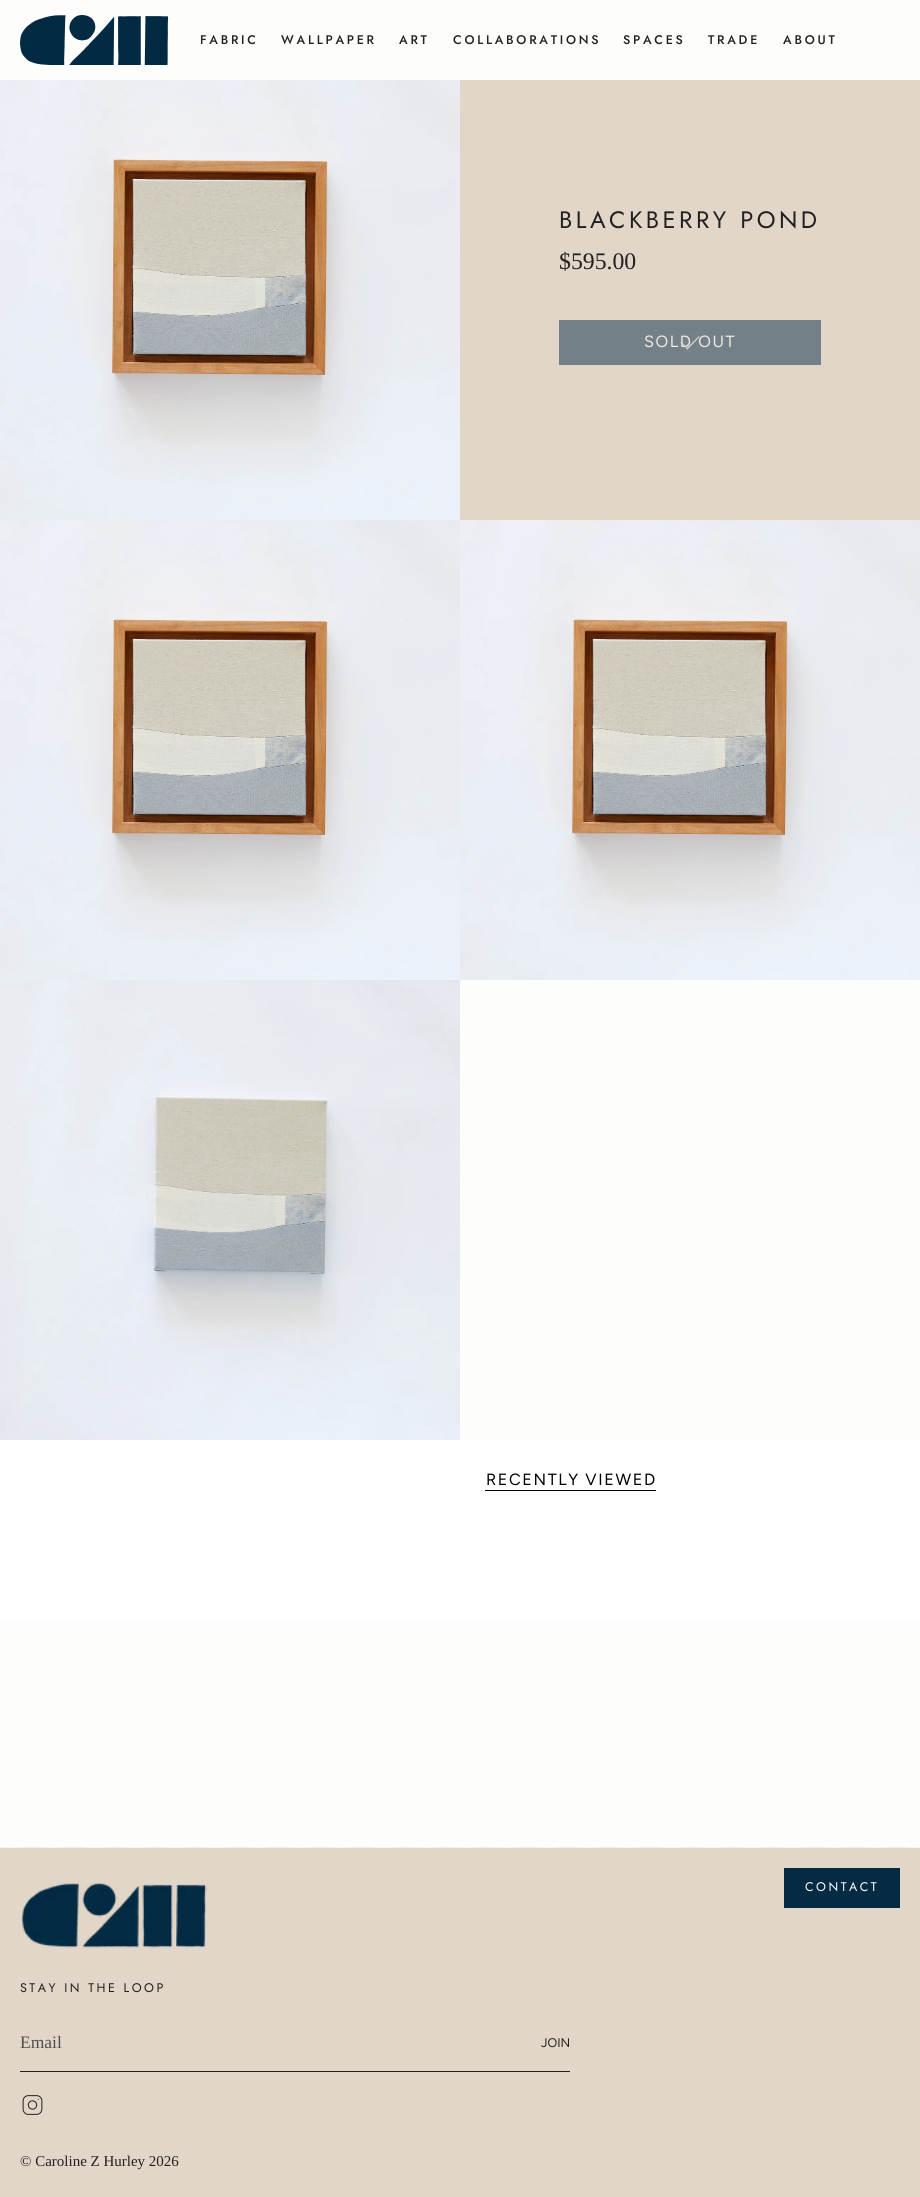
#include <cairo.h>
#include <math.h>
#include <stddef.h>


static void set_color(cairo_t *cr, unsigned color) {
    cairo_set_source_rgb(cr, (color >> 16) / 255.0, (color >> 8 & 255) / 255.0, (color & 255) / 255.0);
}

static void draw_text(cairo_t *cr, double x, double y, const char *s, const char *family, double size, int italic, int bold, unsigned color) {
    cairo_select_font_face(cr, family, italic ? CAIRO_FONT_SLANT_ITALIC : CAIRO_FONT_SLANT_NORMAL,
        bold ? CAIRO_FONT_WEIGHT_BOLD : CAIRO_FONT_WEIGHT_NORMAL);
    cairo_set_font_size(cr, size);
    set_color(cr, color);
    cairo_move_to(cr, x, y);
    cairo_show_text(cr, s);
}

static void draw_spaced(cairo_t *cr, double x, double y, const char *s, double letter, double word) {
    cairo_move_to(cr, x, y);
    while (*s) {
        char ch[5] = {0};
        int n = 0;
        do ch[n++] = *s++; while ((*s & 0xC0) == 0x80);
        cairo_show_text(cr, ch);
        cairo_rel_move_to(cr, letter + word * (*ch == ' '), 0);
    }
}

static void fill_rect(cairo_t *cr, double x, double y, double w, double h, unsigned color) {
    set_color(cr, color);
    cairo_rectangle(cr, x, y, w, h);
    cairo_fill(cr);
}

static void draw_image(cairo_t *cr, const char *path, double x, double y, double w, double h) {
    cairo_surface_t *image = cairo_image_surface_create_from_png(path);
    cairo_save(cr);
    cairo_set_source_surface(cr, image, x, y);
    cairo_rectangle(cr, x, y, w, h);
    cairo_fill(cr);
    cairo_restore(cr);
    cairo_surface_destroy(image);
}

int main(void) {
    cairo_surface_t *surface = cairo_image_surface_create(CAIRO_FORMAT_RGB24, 920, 2197);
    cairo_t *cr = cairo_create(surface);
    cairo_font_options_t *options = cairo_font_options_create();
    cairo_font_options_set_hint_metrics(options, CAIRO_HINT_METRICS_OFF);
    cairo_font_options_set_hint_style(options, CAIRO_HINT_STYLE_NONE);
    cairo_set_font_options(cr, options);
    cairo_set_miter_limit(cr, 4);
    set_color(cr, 0xFDFDFB);
    cairo_paint(cr);
    draw_image(cr, "assets/img1.png", 20, 15, 150, 50);
    cairo_select_font_face(cr, "Jost Medium", CAIRO_FONT_SLANT_NORMAL, CAIRO_FONT_WEIGHT_NORMAL);
    cairo_set_font_size(cr, 12.5);
    set_color(cr, 0x212121);
    draw_spaced(cr, 200, 44, "FABRIC", 2.75, 0);
    draw_spaced(cr, 281, 44, "WALLPAPER", 2.75, 0);
    draw_spaced(cr, 399, 44, "ART", 2.75, 0);
    draw_spaced(cr, 453, 44, "COLLABORATIONS", 2.75, 0);
    draw_spaced(cr, 623, 44, "SPACES", 2.75, 0);
    draw_spaced(cr, 708, 44, "TRADE", 2.75, 0);
    draw_spaced(cr, 783, 44, "ABOUT", 2.75, 0);
    draw_image(cr, "assets/img2.png", 0, 80, 460, 440);
    fill_rect(cr, 460, 80, 460, 440, 0xE2D6C9);
    cairo_select_font_face(cr, "Jost", CAIRO_FONT_SLANT_NORMAL, CAIRO_FONT_WEIGHT_NORMAL);
    cairo_set_font_size(cr, 23.75);
    set_color(cr, 0x212121);
    draw_spaced(cr, 559, 228, "BLACKBERRY POND", 3.5, 0);
    draw_text(cr, 559, 269, "$595.00", "Liberation Serif", 23.75, 0, 0, 0x212121);
    fill_rect(cr, 559, 320, 262, 45, 0x748087);
    cairo_select_font_face(cr, "Figtree", CAIRO_FONT_SLANT_NORMAL, CAIRO_FONT_WEIGHT_NORMAL);
    cairo_set_font_size(cr, 16.25);
    set_color(cr, 0xF1EBE4);
    draw_spaced(cr, 644, 347, "SOLD OUT", 1.6, 0);
    set_color(cr, 0xE2D6C9);
    cairo_new_path(cr);
    cairo_move_to(cr, 686.5, 348.5);
    cairo_line_to(cr, 699, 336);
    cairo_line_to(cr, 699.5, 337);
    cairo_line_to(cr, 687.5, 349.5);
    cairo_close_path(cr);
    cairo_fill(cr);
    cairo_new_path(cr);
    cairo_move_to(cr, 680.5, 342.5);
    cairo_line_to(cr, 681, 341.5);
    cairo_line_to(cr, 688, 348.5);
    cairo_line_to(cr, 687.5, 349.5);
    cairo_close_path(cr);
    cairo_fill(cr);
    cairo_arc(cr, 690, 342.5, 9, 0, 2 * M_PI);
    cairo_set_source_rgba(cr, 0.886, 0.839, 0.788, 0.05);
    cairo_set_line_width(cr, 1.2);
    cairo_stroke(cr);
    draw_image(cr, "assets/img3.png", 0, 520, 460, 460);
    draw_image(cr, "assets/img4.png", 460, 520, 460, 460);
    draw_image(cr, "assets/img5.png", 0, 980, 460, 460);
    fill_rect(cr, 0, 1440, 920, 180, 0xFFFFFF);
    set_color(cr, 0x000000);
    draw_spaced(cr, 486, 1485, "RECENTLY VIEWED", 1.6, 0);
    fill_rect(cr, 485, 1490, 171, 1, 0x000000);
    draw_image(cr, "assets/img6.png", 0, 1847, 920, 1);
    fill_rect(cr, 0, 1848, 920, 349, 0xE2D6C9);
    draw_image(cr, "assets/img7.png", 21, 1883, 187, 65);
    fill_rect(cr, 784, 1868, 116, 40, 0x052A44);
    cairo_select_font_face(cr, "Jost", CAIRO_FONT_SLANT_NORMAL, CAIRO_FONT_WEIGHT_NORMAL);
    cairo_set_font_size(cr, 12.5);
    set_color(cr, 0xFFFFFF);
    draw_spaced(cr, 805, 1891, "CONTACT", 2.5, 0);
    set_color(cr, 0x212121);
    draw_spaced(cr, 20, 1992, "STAY IN THE LOOP", 2.5, 0);
    fill_rect(cr, 20, 2071, 550, 1, 0x212121);
    draw_text(cr, 20, 2048, "Email", "Liberation Serif", 17.5, 0, 0, 0x514E4B);
    draw_text(cr, 541, 2047, "JOIN", "Figtree", 12.5, 0, 0, 0x212121);
    draw_image(cr, "assets/img8.png", 22, 2095, 21, 20);
    draw_text(cr, 20, 2166, "© Caroline Z Hurley 2026", "Liberation Serif", 15, 0, 0, 0x212121);
    cairo_surface_write_to_png(surface, "output.png");
    cairo_font_options_destroy(options);
    cairo_destroy(cr);
    cairo_surface_destroy(surface);
    return 0;
}
